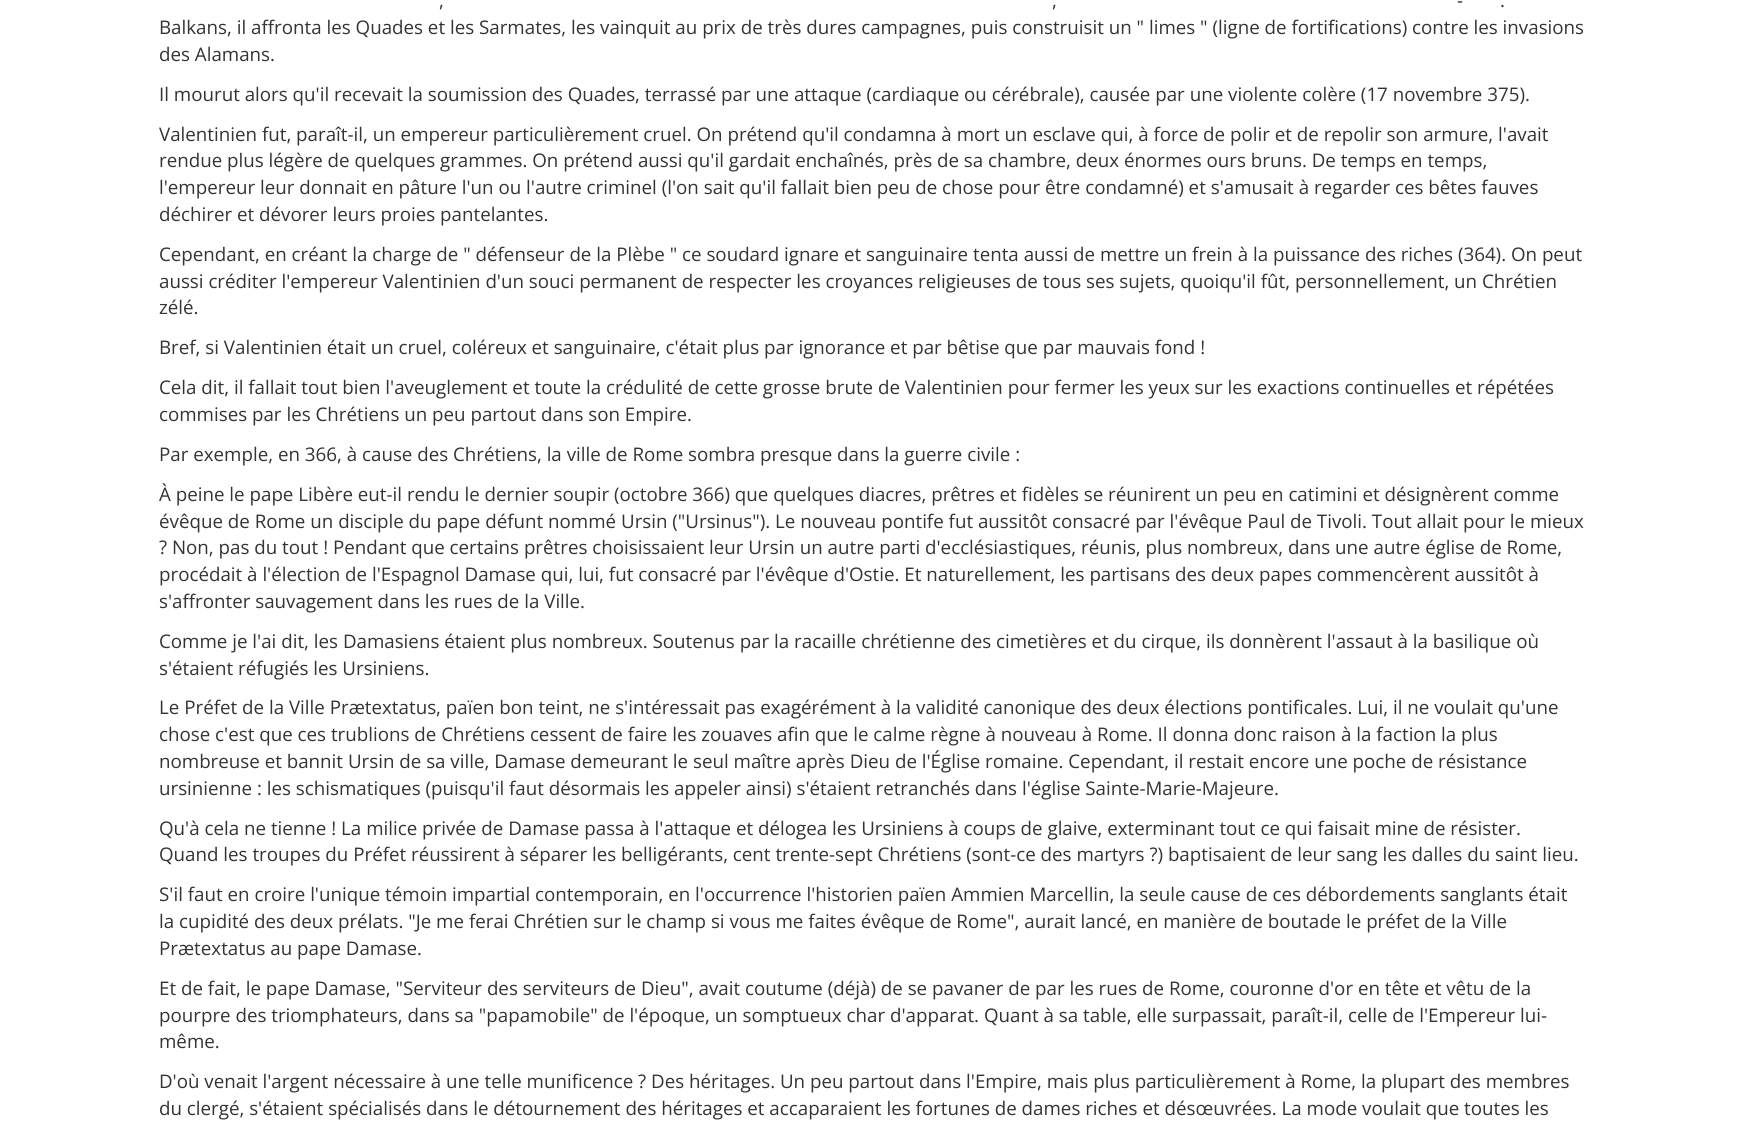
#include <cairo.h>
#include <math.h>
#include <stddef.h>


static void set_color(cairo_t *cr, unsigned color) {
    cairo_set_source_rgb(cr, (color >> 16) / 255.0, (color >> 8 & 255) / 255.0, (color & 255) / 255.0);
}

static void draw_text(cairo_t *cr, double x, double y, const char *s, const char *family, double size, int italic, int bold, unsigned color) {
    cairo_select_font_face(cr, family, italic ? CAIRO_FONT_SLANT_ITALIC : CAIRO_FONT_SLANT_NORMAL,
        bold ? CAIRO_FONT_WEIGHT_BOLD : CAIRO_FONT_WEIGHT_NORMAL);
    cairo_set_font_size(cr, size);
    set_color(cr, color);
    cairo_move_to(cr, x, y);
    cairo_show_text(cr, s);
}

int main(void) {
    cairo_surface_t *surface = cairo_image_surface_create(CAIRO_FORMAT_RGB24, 1742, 1123);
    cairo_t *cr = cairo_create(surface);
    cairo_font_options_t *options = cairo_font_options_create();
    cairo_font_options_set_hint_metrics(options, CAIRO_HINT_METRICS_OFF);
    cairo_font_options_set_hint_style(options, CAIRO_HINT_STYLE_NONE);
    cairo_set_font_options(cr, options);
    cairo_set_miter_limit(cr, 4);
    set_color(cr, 0xFFFFFF);
    cairo_paint(cr);
    draw_text(cr, 1457, 7, "-", "Open Sans", 18.75, 0, 0, 0x333333);
    draw_text(cr, 439, 7, ",", "Open Sans", 18.75, 0, 0, 0x333333);
    draw_text(cr, 1052, 7, ",", "Open Sans", 18.75, 0, 0, 0x333333);
    draw_text(cr, 1500, 7, ".", "Open Sans", 18.75, 0, 0, 0x333333);
    draw_text(cr, 159, 34, "Balkans, il affronta les Quades et les Sarmates, les vainquit au prix de très dures campagnes, puis construisit un \" limes \" (ligne de fortifications) contre les invasions", "Open Sans", 18.75, 0, 0, 0x333333);
    draw_text(cr, 159, 61, "des Alamans.", "Open Sans", 18.75, 0, 0, 0x333333);
    draw_text(cr, 159, 101, "Il mourut alors qu'il recevait la soumission des Quades, terrassé par une attaque (cardiaque ou cérébrale), causée par une violente colère (17 novembre 375).", "Open Sans", 18.75, 0, 0, 0x333333);
    draw_text(cr, 159, 141, "Valentinien fut, paraît-il, un empereur particulièrement cruel. On prétend qu'il condamna à mort un esclave qui, à force de polir et de repolir son armure, l'avait", "Open Sans", 18.75, 0, 0, 0x333333);
    draw_text(cr, 159, 167, "rendue plus légère de quelques grammes. On prétend aussi qu'il gardait enchaînés, près de sa chambre, deux énormes ours bruns. De temps en temps,", "Open Sans", 18.75, 0, 0, 0x333333);
    draw_text(cr, 159, 194, "l'empereur leur donnait en pâture l'un ou l'autre criminel (l'on sait qu'il fallait bien peu de chose pour être condamné) et s'amusait à regarder ces bêtes fauves", "Open Sans", 18.75, 0, 0, 0x333333);
    draw_text(cr, 159, 221, "déchirer et dévorer leurs proies pantelantes.", "Open Sans", 18.75, 0, 0, 0x333333);
    draw_text(cr, 159, 261, "Cependant, en créant la charge de \" défenseur de la Plèbe \" ce soudard ignare et sanguinaire tenta aussi de mettre un frein à la puissance des riches (364). On peut", "Open Sans", 18.75, 0, 0, 0x333333);
    draw_text(cr, 159, 288, "aussi créditer l'empereur Valentinien d'un souci permanent de respecter les croyances religieuses de tous ses sujets, quoiqu'il fût, personnellement, un Chrétien", "Open Sans", 18.75, 0, 0, 0x333333);
    draw_text(cr, 159, 314, "zélé.", "Open Sans", 18.75, 0, 0, 0x333333);
    draw_text(cr, 159, 354, "Bref, si Valentinien était un cruel, coléreux et sanguinaire, c'était plus par ignorance et par bêtise que par mauvais fond !", "Open Sans", 18.75, 0, 0, 0x333333);
    draw_text(cr, 159, 394, "Cela dit, il fallait tout bien l'aveuglement et toute la crédulité de cette grosse brute de Valentinien pour fermer les yeux sur les exactions continuelles et répétées", "Open Sans", 18.75, 0, 0, 0x333333);
    draw_text(cr, 159, 421, "commises par les Chrétiens un peu partout dans son Empire.", "Open Sans", 18.75, 0, 0, 0x333333);
    draw_text(cr, 159, 461, "Par exemple, en 366, à cause des Chrétiens, la ville de Rome sombra presque dans la guerre civile :", "Open Sans", 18.75, 0, 0, 0x333333);
    draw_text(cr, 159, 501, "À peine le pape Libère eut-il rendu le dernier soupir (octobre 366) que quelques diacres, prêtres et fidèles se réunirent un peu en catimini et désignèrent comme", "Open Sans", 18.75, 0, 0, 0x333333);
    draw_text(cr, 159, 528, "évêque de Rome un disciple du pape défunt nommé Ursin (\"Ursinus\"). Le nouveau pontife fut aussitôt consacré par l'évêque Paul de Tivoli. Tout allait pour le mieux", "Open Sans", 18.75, 0, 0, 0x333333);
    draw_text(cr, 159, 554, "? Non, pas du tout ! Pendant que certains prêtres choisissaient leur Ursin un autre parti d'ecclésiastiques, réunis, plus nombreux, dans une autre église de Rome,", "Open Sans", 18.75, 0, 0, 0x333333);
    draw_text(cr, 159, 581, "procédait à l'élection de l'Espagnol Damase qui, lui, fut consacré par l'évêque d'Ostie. Et naturellement, les partisans des deux papes commencèrent aussitôt à", "Open Sans", 18.75, 0, 0, 0x333333);
    draw_text(cr, 159, 608, "s'affronter sauvagement dans les rues de la Ville.", "Open Sans", 18.75, 0, 0, 0x333333);
    draw_text(cr, 159, 648, "Comme je l'ai dit, les Damasiens étaient plus nombreux. Soutenus par la racaille chrétienne des cimetières et du cirque, ils donnèrent l'assaut à la basilique où", "Open Sans", 18.75, 0, 0, 0x333333);
    draw_text(cr, 159, 675, "s'étaient réfugiés les Ursiniens.", "Open Sans", 18.75, 0, 0, 0x333333);
    draw_text(cr, 159, 714, "Le Préfet de la Ville Prætextatus, païen bon teint, ne s'intéressait pas exagérément à la validité canonique des deux élections pontificales. Lui, il ne voulait qu'une", "Open Sans", 18.75, 0, 0, 0x333333);
    draw_text(cr, 159, 741, "chose c'est que ces trublions de Chrétiens cessent de faire les zouaves afin que le calme règne à nouveau à Rome. Il donna donc raison à la faction la plus", "Open Sans", 18.75, 0, 0, 0x333333);
    draw_text(cr, 159, 768, "nombreuse et bannit Ursin de sa ville, Damase demeurant le seul maître après Dieu de l'Église romaine. Cependant, il restait encore une poche de résistance", "Open Sans", 18.75, 0, 0, 0x333333);
    draw_text(cr, 159, 795, "ursinienne : les schismatiques (puisqu'il faut désormais les appeler ainsi) s'étaient retranchés dans l'église Sainte-Marie-Majeure.", "Open Sans", 18.75, 0, 0, 0x333333);
    draw_text(cr, 159, 835, "Qu'à cela ne tienne ! La milice privée de Damase passa à l'attaque et délogea les Ursiniens à coups de glaive, exterminant tout ce qui faisait mine de résister.", "Open Sans", 18.75, 0, 0, 0x333333);
    draw_text(cr, 159, 861, "Quand les troupes du Préfet réussirent à séparer les belligérants, cent trente-sept Chrétiens (sont-ce des martyrs ?) baptisaient de leur sang les dalles du saint lieu.", "Open Sans", 18.75, 0, 0, 0x333333);
    draw_text(cr, 159, 901, "S'il faut en croire l'unique témoin impartial contemporain, en l'occurrence l'historien païen Ammien Marcellin, la seule cause de ces débordements sanglants était", "Open Sans", 18.75, 0, 0, 0x333333);
    draw_text(cr, 159, 928, "la cupidité des deux prélats. \"Je me ferai Chrétien sur le champ si vous me faites évêque de Rome\", aurait lancé, en manière de boutade le préfet de la Ville", "Open Sans", 18.75, 0, 0, 0x333333);
    draw_text(cr, 159, 955, "Prætextatus au pape Damase.", "Open Sans", 18.75, 0, 0, 0x333333);
    draw_text(cr, 159, 995, "Et de fait, le pape Damase, \"Serviteur des serviteurs de Dieu\", avait coutume (déjà) de se pavaner de par les rues de Rome, couronne d'or en tête et vêtu de la", "Open Sans", 18.75, 0, 0, 0x333333);
    draw_text(cr, 159, 1022, "pourpre des triomphateurs, dans sa \"papamobile\" de l'époque, un somptueux char d'apparat. Quant à sa table, elle surpassait, paraît-il, celle de l'Empereur lui-", "Open Sans", 18.75, 0, 0, 0x333333);
    draw_text(cr, 159, 1048, "même.", "Open Sans", 18.75, 0, 0, 0x333333);
    draw_text(cr, 159, 1088, "D'où venait l'argent nécessaire à une telle munificence ? Des héritages. Un peu partout dans l'Empire, mais plus particulièrement à Rome, la plupart des membres", "Open Sans", 18.75, 0, 0, 0x333333);
    draw_text(cr, 159, 1115, "du clergé, s'étaient spécialisés dans le détournement des héritages et accaparaient les fortunes de dames riches et désœuvrées. La mode voulait que toutes les", "Open Sans", 18.75, 0, 0, 0x333333);
    cairo_surface_write_to_png(surface, "output.png");
    cairo_font_options_destroy(options);
    cairo_destroy(cr);
    cairo_surface_destroy(surface);
    return 0;
}
